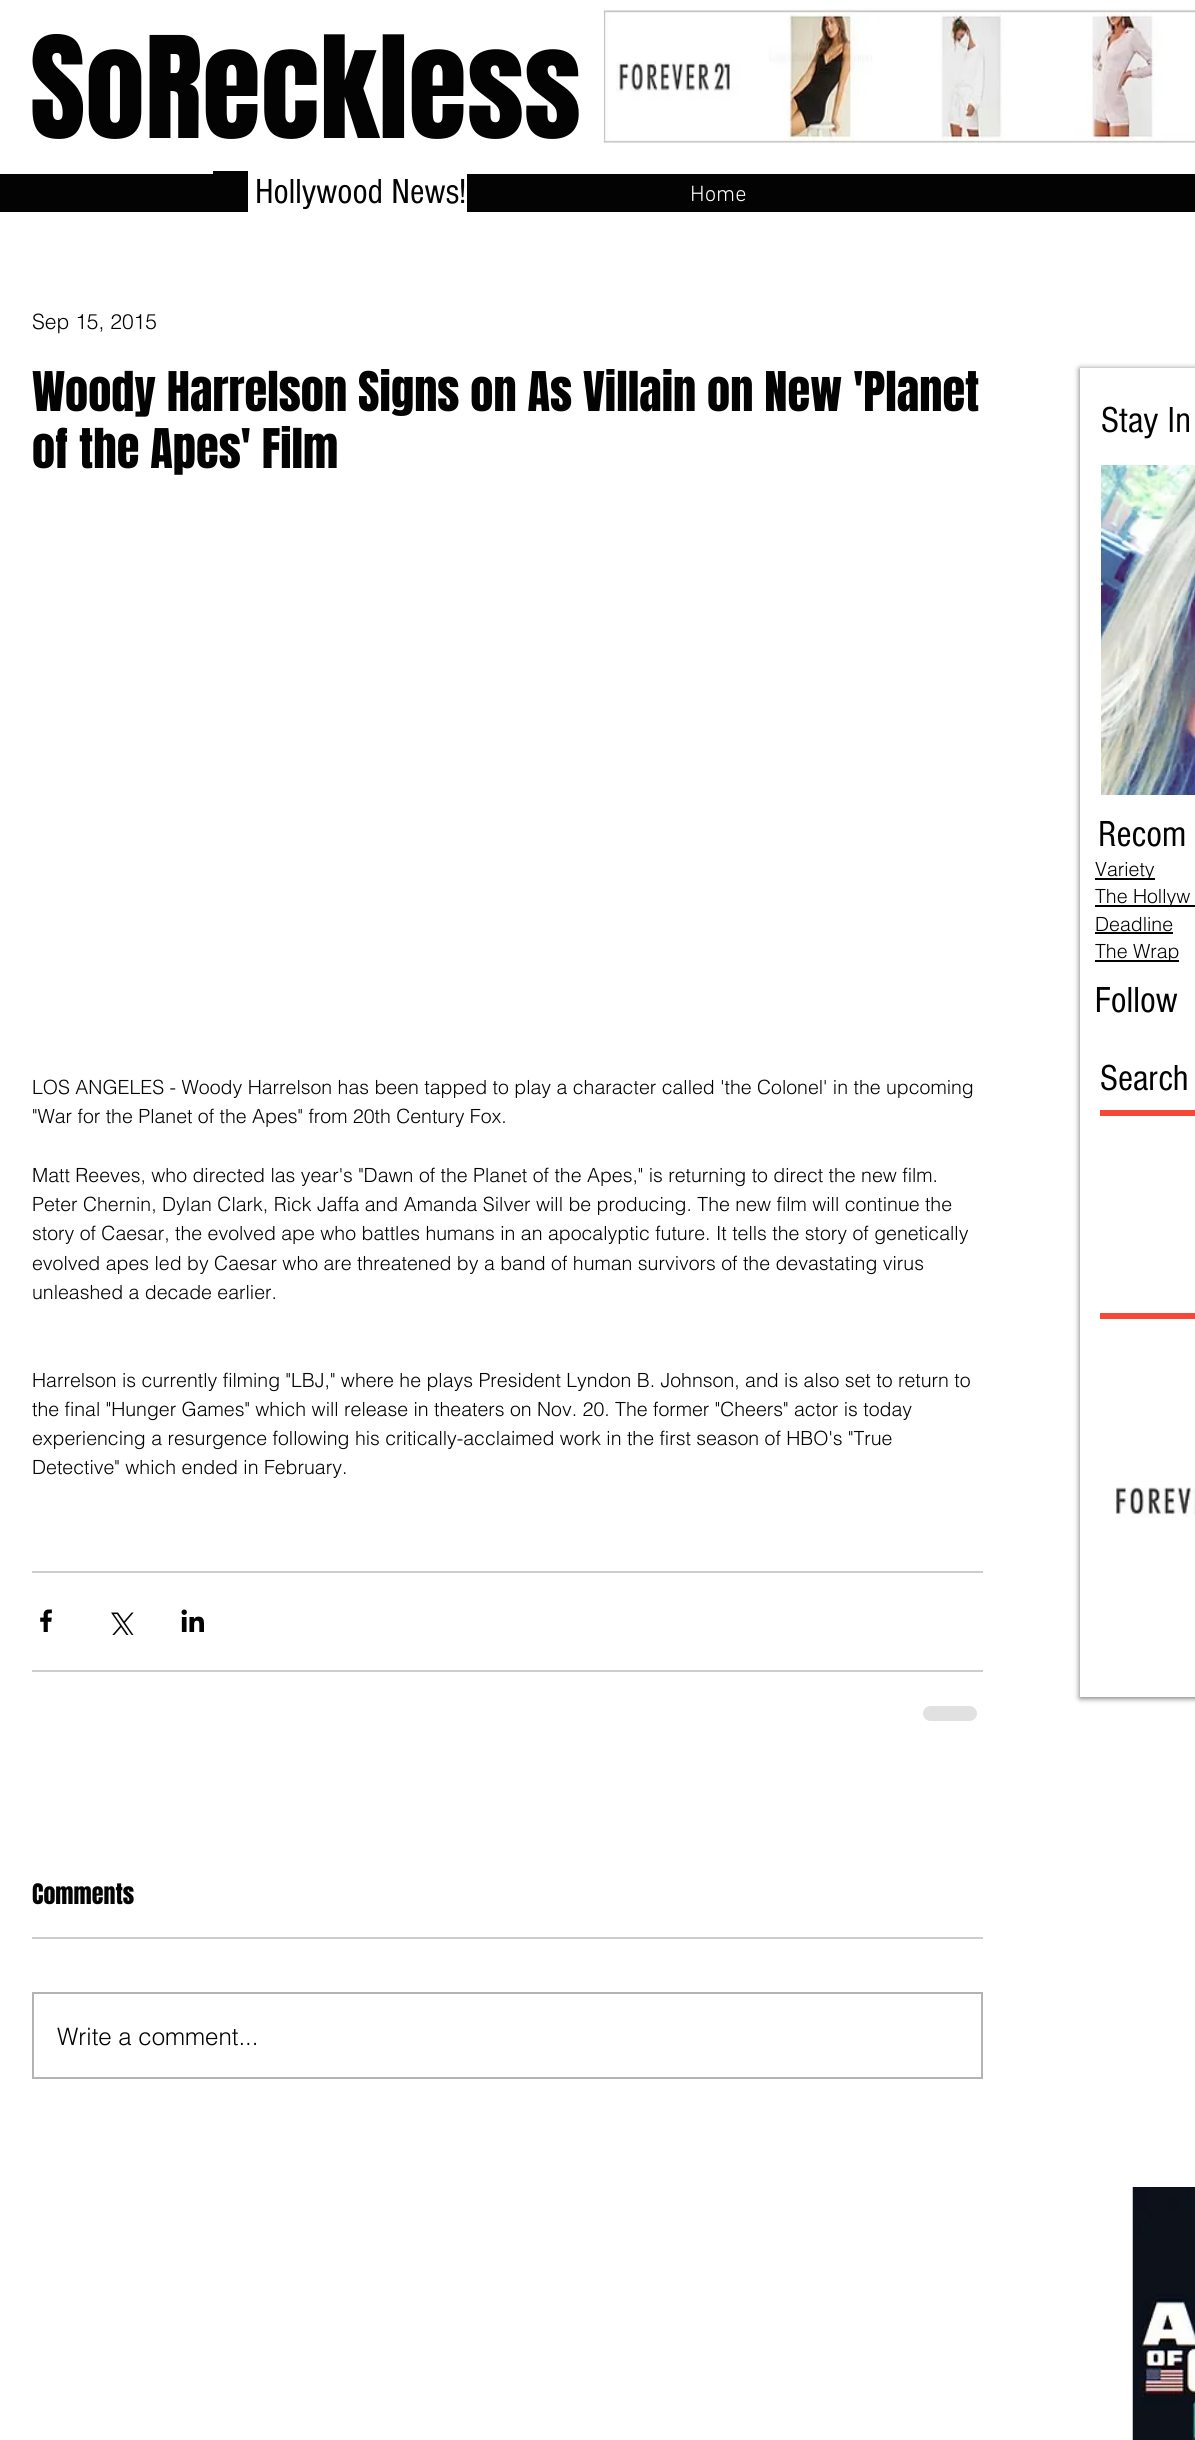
#include <cairo.h>
#include <math.h>
#include <stddef.h>


static void set_color(cairo_t *cr, unsigned color) {
    cairo_set_source_rgb(cr, (color >> 16) / 255.0, (color >> 8 & 255) / 255.0, (color & 255) / 255.0);
}

static void draw_text(cairo_t *cr, double x, double y, const char *s, const char *family, double size, int italic, int bold, unsigned color) {
    cairo_select_font_face(cr, family, italic ? CAIRO_FONT_SLANT_ITALIC : CAIRO_FONT_SLANT_NORMAL,
        bold ? CAIRO_FONT_WEIGHT_BOLD : CAIRO_FONT_WEIGHT_NORMAL);
    cairo_set_font_size(cr, size);
    set_color(cr, color);
    cairo_move_to(cr, x, y);
    cairo_show_text(cr, s);
}

static void fill_rect(cairo_t *cr, double x, double y, double w, double h, unsigned color) {
    set_color(cr, color);
    cairo_rectangle(cr, x, y, w, h);
    cairo_fill(cr);
}

static void rounded_rect(cairo_t *cr, double x, double y, double w, double h, double r) {
    cairo_new_sub_path(cr);
    cairo_arc(cr, x + w - r, y + h - r, r, 0, M_PI / 2);
    cairo_arc(cr, x + r, y + h - r, r, M_PI / 2, M_PI);
    cairo_arc(cr, x + r, y + r, r, M_PI, 1.5 * M_PI);
    cairo_arc(cr, x + w - r, y + r, r, 1.5 * M_PI, 2 * M_PI);
    cairo_close_path(cr);
}

static void draw_shadow(cairo_t *cr, double x, double y, double w, double h, double r, double blur, double alpha) {
    cairo_push_group_with_content(cr, CAIRO_CONTENT_ALPHA);
    cairo_set_operator(cr, CAIRO_OPERATOR_SOURCE);
    for (int i = 15; i >= -15 && fmin(w, h) + blur * i / 3 > 0; i -= 2) {
        double e = blur * i / 6;
        cairo_set_source_rgba(cr, 0, 0, 0, alpha * erfc((i - 1) / 8.5) / 2);
        rounded_rect(cr, x - e, y - e, w + 2 * e, h + 2 * e, fmax(0, fmin(r + e + blur * .6, fmin(w, h) / 2 + e)));
        cairo_fill(cr);
    }
    cairo_pattern_t *soft = cairo_pop_group(cr);
    cairo_mask(cr, soft);
    cairo_pattern_destroy(soft);
}

static void draw_image(cairo_t *cr, const char *path, double x, double y, double w, double h) {
    cairo_surface_t *image = cairo_image_surface_create_from_png(path);
    cairo_save(cr);
    cairo_set_source_surface(cr, image, x, y);
    cairo_rectangle(cr, x, y, w, h);
    cairo_fill(cr);
    cairo_restore(cr);
    cairo_surface_destroy(image);
}

int main(void) {
    cairo_surface_t *surface = cairo_image_surface_create(CAIRO_FORMAT_RGB24, 1195, 2440);
    cairo_t *cr = cairo_create(surface);
    cairo_font_options_t *options = cairo_font_options_create();
    cairo_font_options_set_hint_metrics(options, CAIRO_HINT_METRICS_OFF);
    cairo_font_options_set_hint_style(options, CAIRO_HINT_STYLE_NONE);
    cairo_set_font_options(cr, options);
    cairo_set_miter_limit(cr, 4);
    set_color(cr, 0xFFFFFF);
    cairo_paint(cr);
    draw_text(cr, 30, 138, "SoReckless", "Anton", 120, 0, 0, 0x030303);
    draw_image(cr, "assets/img1.png", 603, 8, 592, 137);
    fill_rect(cr, 0, 174, 1195, 38, 0x030303);
    fill_rect(cr, 248, 174, 219, 38, 0xFFFFFF);
    draw_text(cr, 255, 203, "Hollywood News!", "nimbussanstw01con", 36, 0, 0, 0x030303);
    fill_rect(cr, 213, 171, 35, 3, 0x030303);
    draw_text(cr, 690, 201, "Home", "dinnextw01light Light", 22.5, 0, 0, 0xFFFFFF);
    draw_text(cr, 32, 329, "Sep 15, 2015", "helvetica Light", 21, 0, 0, 0x030303);
    draw_text(cr, 32, 411, "Woody Harrelson Signs on As Villain on New 'Planet", "Anton", 46.5, 0, 0, 0x030303);
    draw_text(cr, 32, 468, "of the Apes' Film", "Anton", 46.5, 0, 0, 0x030303);
    draw_text(cr, 32, 1094, "LOS ANGELES - Woody Harrelson has been tapped to play a character called 'the Colonel' in the upcoming", "helvetica Light", 19.5, 0, 0, 0x030303);
    draw_text(cr, 32, 1123, "\"War for the Planet of the Apes\" from 20th Century Fox.", "helvetica Light", 19.5, 0, 0, 0x030303);
    draw_text(cr, 32, 1182, "Matt Reeves, who directed las year's \"Dawn of the Planet of the Apes,\" is returning to direct the new film.", "helvetica Light", 19.5, 0, 0, 0x030303);
    draw_text(cr, 32, 1211, "Peter Chernin, Dylan Clark, Rick Jaffa and Amanda Silver will be producing. The new film will continue the", "helvetica Light", 19.5, 0, 0, 0x030303);
    draw_text(cr, 32, 1240, "story of Caesar, the evolved ape who battles humans in an apocalyptic future. It tells the story of genetically", "helvetica Light", 19.5, 0, 0, 0x030303);
    draw_text(cr, 32, 1270, "evolved apes led by Caesar who are threatened by a band of human survivors of the devastating virus", "helvetica Light", 19.5, 0, 0, 0x030303);
    draw_text(cr, 32, 1299, "unleashed a decade earlier.", "helvetica Light", 19.5, 0, 0, 0x030303);
    draw_text(cr, 32, 1387, "Harrelson is currently filming \"LBJ,\" where he plays President Lyndon B. Johnson, and is also set to return to", "helvetica Light", 19.5, 0, 0, 0x030303);
    draw_text(cr, 32, 1416, "the final \"Hunger Games\" which will release in theaters on Nov. 20. The former \"Cheers\" actor is today", "helvetica Light", 19.5, 0, 0, 0x030303);
    draw_text(cr, 32, 1445, "experiencing a resurgence following his critically-acclaimed work in the first season of HBO's \"True", "helvetica Light", 19.5, 0, 0, 0x030303);
    draw_text(cr, 32, 1474, "Detective\" which ended in February.", "helvetica Light", 19.5, 0, 0, 0x030303);
    fill_rect(cr, 32, 1571, 951, 2, 0xCDCDCD);
    draw_image(cr, "assets/img2.png", 40, 1609, 12, 23);
    draw_image(cr, "assets/img3.png", 111, 1612, 23, 23);
    draw_image(cr, "assets/img4.png", 181, 1609, 23, 23);
    fill_rect(cr, 32, 1670, 951, 2, 0xCDCDCD);
    set_color(cr, 0xE1E1E1);
    rounded_rect(cr, 923, 1706, 54, 15, 7.5);
    cairo_fill(cr);
    draw_text(cr, 32, 1904, "Comments", "Anton", 24, 0, 0, 0x030303);
    fill_rect(cr, 32, 1937, 951, 2, 0xCDCDCD);
    cairo_rectangle(cr, 33, 1993, 949, 85);
    set_color(cr, 0xB3B3B3);
    cairo_stroke(cr);
    draw_text(cr, 57, 2045, "Write a comment...", "helvetica Light", 24, 0, 0, 0x030303);
    set_color(cr, 0x000000);
    draw_shadow(cr, 1080, 369, 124, 1329, 0, 3, 0.6);
    fill_rect(cr, 1080, 368, 115, 1329, 0xFFFFFF);
    draw_text(cr, 1101, 432, "Stay In", "nimbussanstw01con", 37.5, 0, 0, 0x030303);
    draw_image(cr, "assets/img5.png", 1101, 465, 94, 330);
    draw_text(cr, 1098, 846, "Recom", "nimbussanstw01con", 37.5, 0, 0, 0x030303);
    fill_rect(cr, 1095, 878, 60, 2, 0x030303);
    draw_text(cr, 1095, 876, "Variety", "helvetica Light", 19.5, 0, 0, 0x030303);
    fill_rect(cr, 1095, 905, 100, 2, 0x030303);
    draw_text(cr, 1095, 903, "The Hollyw", "helvetica Light", 19.5, 0, 0, 0x030303);
    draw_text(cr, 1095, 931, "Deadline", "helvetica Light", 19.5, 0, 0, 0x030303);
    fill_rect(cr, 1095, 932, 78, 2, 0x030303);
    fill_rect(cr, 1095, 960, 84, 2, 0x030303);
    draw_text(cr, 1095, 958, "The Wrap", "helvetica Light", 19.5, 0, 0, 0x030303);
    draw_text(cr, 1095, 1012, "Follow", "nimbussanstw01con", 37.5, 0, 0, 0x030303);
    draw_text(cr, 1100, 1090, "Search", "nimbussanstw01con", 37.5, 0, 0, 0x030303);
    fill_rect(cr, 1100, 1110, 95, 6, 0xF84738);
    fill_rect(cr, 1100, 1313, 95, 6, 0xF84738);
    draw_image(cr, "assets/img6.png", 1115, 1487, 80, 31);
    draw_image(cr, "assets/img7.png", 1132, 2187, 63, 253);
    cairo_surface_write_to_png(surface, "output.png");
    cairo_font_options_destroy(options);
    cairo_destroy(cr);
    cairo_surface_destroy(surface);
    return 0;
}
